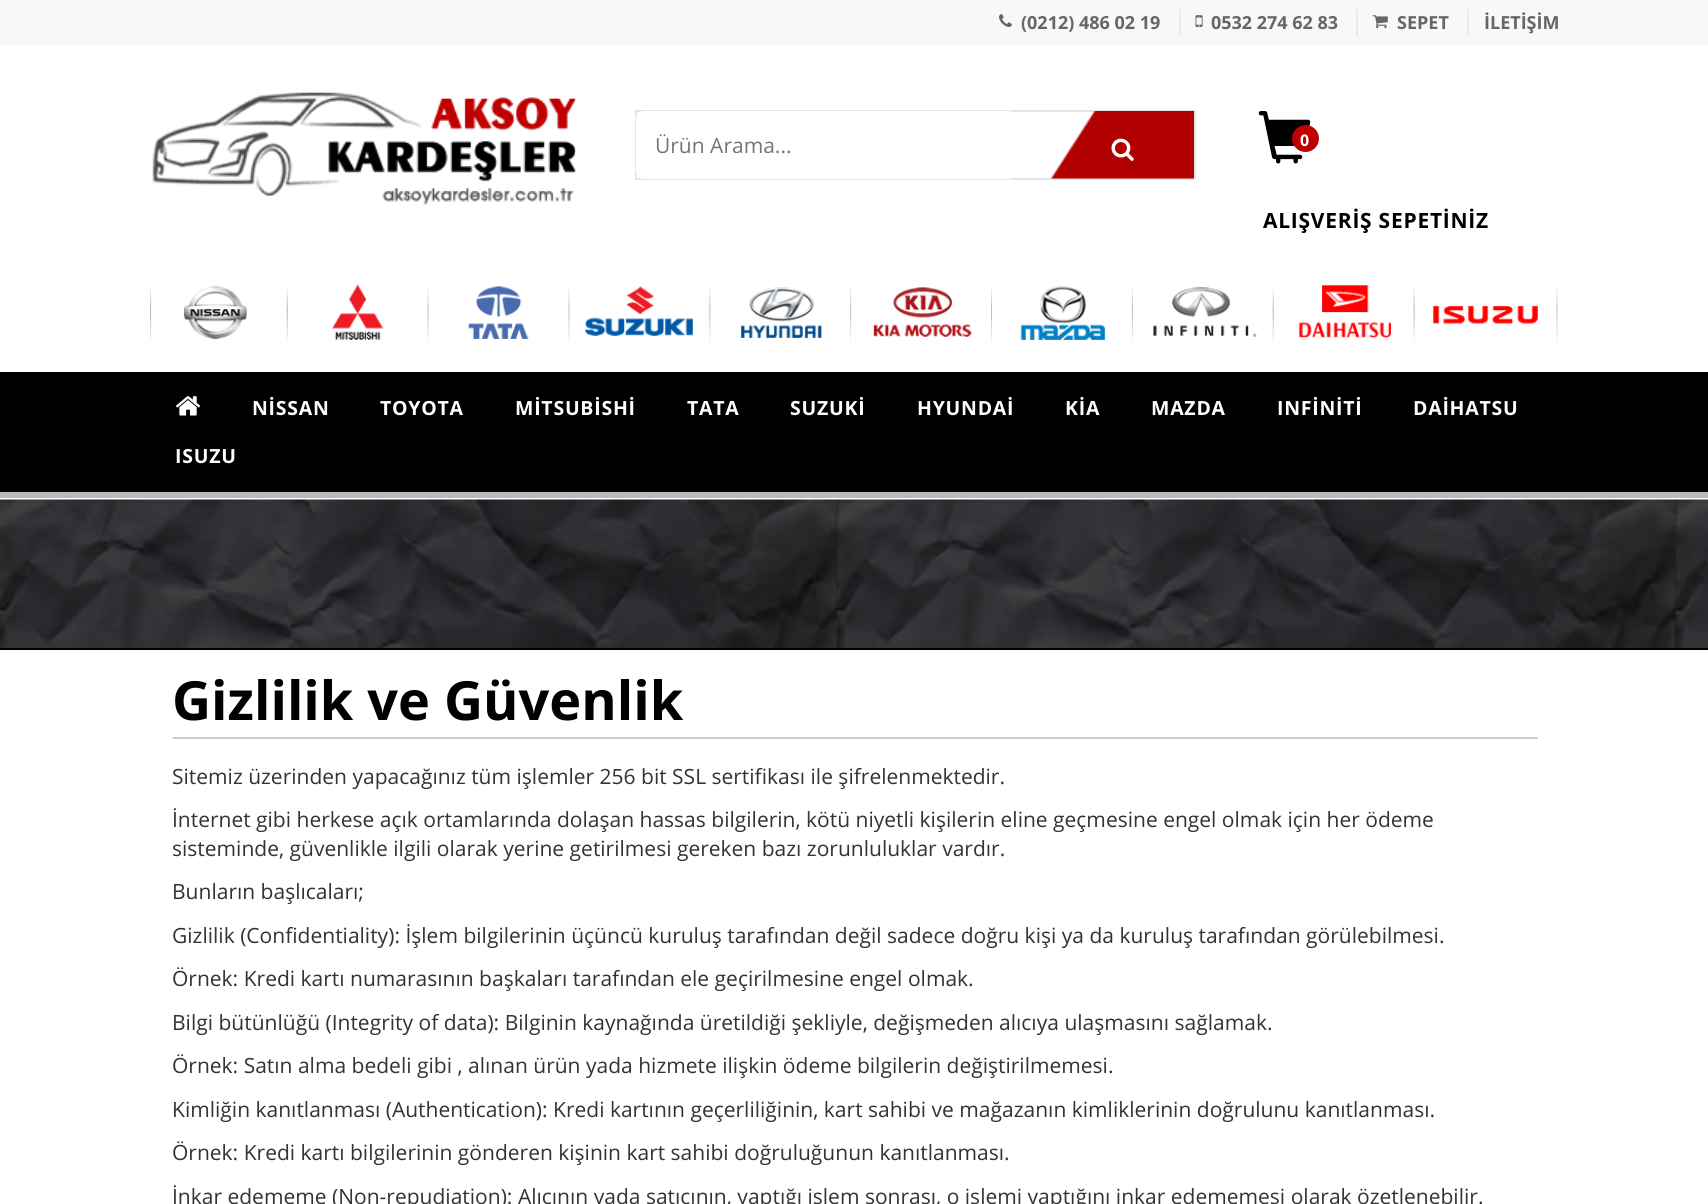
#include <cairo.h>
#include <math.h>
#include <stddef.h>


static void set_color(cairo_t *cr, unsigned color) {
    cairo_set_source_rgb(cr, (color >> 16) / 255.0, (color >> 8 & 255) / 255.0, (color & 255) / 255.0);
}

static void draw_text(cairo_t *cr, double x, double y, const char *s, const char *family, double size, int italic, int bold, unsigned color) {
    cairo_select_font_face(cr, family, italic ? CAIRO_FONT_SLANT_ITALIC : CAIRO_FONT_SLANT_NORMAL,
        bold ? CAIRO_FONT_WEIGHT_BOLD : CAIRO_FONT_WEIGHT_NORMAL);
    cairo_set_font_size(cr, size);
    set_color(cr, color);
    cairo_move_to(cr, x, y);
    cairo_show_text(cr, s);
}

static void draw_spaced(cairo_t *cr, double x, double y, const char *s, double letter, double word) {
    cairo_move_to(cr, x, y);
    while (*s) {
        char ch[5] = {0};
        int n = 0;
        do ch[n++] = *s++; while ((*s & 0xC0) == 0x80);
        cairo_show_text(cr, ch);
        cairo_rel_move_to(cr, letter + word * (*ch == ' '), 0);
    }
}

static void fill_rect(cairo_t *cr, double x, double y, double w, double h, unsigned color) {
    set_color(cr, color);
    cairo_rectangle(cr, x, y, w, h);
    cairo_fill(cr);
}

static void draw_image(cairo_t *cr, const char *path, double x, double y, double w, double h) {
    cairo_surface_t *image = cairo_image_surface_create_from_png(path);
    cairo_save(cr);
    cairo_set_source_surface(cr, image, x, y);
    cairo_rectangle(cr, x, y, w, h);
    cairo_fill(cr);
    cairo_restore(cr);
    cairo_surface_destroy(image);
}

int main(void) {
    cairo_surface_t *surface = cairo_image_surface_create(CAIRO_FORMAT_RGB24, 1708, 1204);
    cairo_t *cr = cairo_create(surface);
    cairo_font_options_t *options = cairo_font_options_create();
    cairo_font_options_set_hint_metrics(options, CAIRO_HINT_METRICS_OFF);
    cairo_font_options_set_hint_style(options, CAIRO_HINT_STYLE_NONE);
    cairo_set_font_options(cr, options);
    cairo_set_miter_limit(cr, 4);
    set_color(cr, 0xFFFFFF);
    cairo_paint(cr);
    fill_rect(cr, 0, 0, 1708, 45, 0xF8F8F8);
    fill_rect(cr, 1179, 9, 2, 27, 0xEAEAEA);
    draw_image(cr, "assets/img1.png", 999, 14, 13, 13);
    draw_text(cr, 1021, 29, "(0212) 486 02 19", "Open Sans", 18, 0, 1, 0x666666);
    fill_rect(cr, 1356, 9, 2, 27, 0xEAEAEA);
    draw_image(cr, "assets/img2.png", 1195, 15, 8, 12);
    draw_text(cr, 1211, 29, "0532 274 62 83", "Open Sans", 18, 0, 1, 0x666666);
    fill_rect(cr, 1467, 9, 2, 27, 0xEAEAEA);
    draw_image(cr, "assets/img3.png", 1372, 15, 16, 14);
    draw_text(cr, 1397, 29, "SEPET", "Open Sans", 18, 0, 1, 0x666666);
    draw_text(cr, 1484, 29, "İLETİŞİM", "Open Sans", 18, 0, 1, 0x666666);
    draw_image(cr, "assets/img4.png", 152, 92, 425, 113);
    cairo_rectangle(cr, 636, 111, 559, 68);
    set_color(cr, 0xE5E5E5);
    cairo_stroke(cr);
    set_color(cr, 0xFFFFFF);
    cairo_new_path(cr);
    cairo_move_to(cr, 644, 111);
    cairo_line_to(cr, 1010, 111);
    cairo_line_to(cr, 1010, 179);
    cairo_line_to(cr, 644, 179);
    cairo_curve_to(cr, 639.5, 179, 636, 175.5, 636, 171);
    cairo_line_to(cr, 636, 119);
    cairo_curve_to(cr, 636, 114.5, 639.5, 111, 644, 111);
    cairo_close_path(cr);
    cairo_fill(cr);
    draw_text(cr, 655, 153, "Ürün Arama...", "Open Sans", 21, 0, 0, 0x757575);
    draw_image(cr, "assets/img5.png", 1051, 111, 143, 68);
    draw_image(cr, "assets/img6.png", 1111, 138, 23, 23);
    draw_image(cr, "assets/img7.png", 1258, 111, 53, 53);
    set_color(cr, 0xC00000);
    cairo_arc(cr, 1305.5, 138.5, 13.5, 0, 2 * M_PI);
    cairo_fill(cr);
    draw_text(cr, 1300, 146, "0", "Open Sans", 16, 0, 1, 0xFFFFFF);
    cairo_set_font_size(cr, 21);
    set_color(cr, 0x000000);
    draw_spaced(cr, 1263, 228, "ALIŞVERİŞ SEPETİNİZ", 0.75, 0);
    draw_image(cr, "assets/img8.png", 150, 284, 1408, 58);
    fill_rect(cr, 0, 372, 1708, 120, 0x000000);
    fill_rect(cr, 0, 492, 1708, 6, 0xBABABA);
    draw_image(cr, "assets/img9.png", 176, 396, 25, 20);
    cairo_set_font_size(cr, 19.5);
    set_color(cr, 0xFFFFFF);
    draw_spaced(cr, 252, 415, "NİSSAN", 0.75, 0);
    draw_spaced(cr, 380, 415, "TOYOTA", 0.75, 0);
    draw_spaced(cr, 515, 415, "MİTSUBİSHİ", 0.75, 0);
    draw_spaced(cr, 687, 415, "TATA", 0.75, 0);
    draw_spaced(cr, 790, 415, "SUZUKİ", 0.75, 0);
    draw_spaced(cr, 917, 415, "HYUNDAİ", 0.75, 0);
    draw_spaced(cr, 1065, 415, "KİA", 0.75, 0);
    draw_spaced(cr, 1151, 415, "MAZDA", 0.75, 0);
    draw_spaced(cr, 1277, 415, "INFİNİTİ", 0.75, 0);
    draw_spaced(cr, 1413, 415, "DAİHATSU", 0.75, 0);
    draw_spaced(cr, 175, 463, "ISUZU", 0.75, 0);
    draw_image(cr, "assets/img10.png", 0, 499, 1708, 149);
    fill_rect(cr, 0, 648, 1708, 2, 0x000000);
    fill_rect(cr, 173, 737, 1365, 2, 0xCCCCCC);
    draw_text(cr, 172, 720, "Gizlilik ve Güvenlik", "Open Sans", 54, 0, 1, 0x000000);
    draw_text(cr, 172, 784, "Sitemiz üzerinden yapacağınız tüm işlemler 256 bit SSL sertifikası ile şifrelenmektedir.", "Open Sans", 21, 0, 0, 0x333333);
    draw_text(cr, 172, 827, "İnternet gibi herkese açık ortamlarında dolaşan hassas bilgilerin, kötü niyetli kişilerin eline geçmesine engel olmak için her ödeme", "Open Sans", 21, 0, 0, 0x333333);
    draw_text(cr, 172, 856, "sisteminde, güvenlikle ilgili olarak yerine getirilmesi gereken bazı zorunluluklar vardır.", "Open Sans", 21, 0, 0, 0x333333);
    draw_text(cr, 172, 899, "Bunların başlıcaları;", "Open Sans", 21, 0, 0, 0x333333);
    draw_text(cr, 172, 943, "Gizlilik (Confidentiality): İşlem bilgilerinin üçüncü kuruluş tarafından değil sadece doğru kişi ya da kuruluş tarafından görülebilmesi.", "Open Sans", 21, 0, 0, 0x333333);
    draw_text(cr, 172, 986, "Örnek: Kredi kartı numarasının başkaları tarafından ele geçirilmesine engel olmak.", "Open Sans", 21, 0, 0, 0x333333);
    draw_text(cr, 172, 1030, "Bilgi bütünlüğü (Integrity of data): Bilginin kaynağında üretildiği şekliyle, değişmeden alıcıya ulaşmasını sağlamak.", "Open Sans", 21, 0, 0, 0x333333);
    draw_text(cr, 172, 1073, "Örnek: Satın alma bedeli gibi , alınan ürün yada hizmete ilişkin ödeme bilgilerin değiştirilmemesi.", "Open Sans", 21, 0, 0, 0x333333);
    draw_text(cr, 172, 1117, "Kimliğin kanıtlanması (Authentication): Kredi kartının geçerliliğinin, kart sahibi ve mağazanın kimliklerinin doğrulunu kanıtlanması.", "Open Sans", 21, 0, 0, 0x333333);
    draw_text(cr, 172, 1160, "Örnek: Kredi kartı bilgilerinin gönderen kişinin kart sahibi doğruluğunun kanıtlanması.", "Open Sans", 21, 0, 0, 0x333333);
    draw_text(cr, 172, 1204, "İnkar edememe (Non-repudiation): Alıcının yada satıcının, yaptığı işlem sonrası, o işlemi yaptığını inkar edememesi olarak özetlenebilir.", "Open Sans", 21, 0, 0, 0x333333);
    cairo_surface_write_to_png(surface, "output.png");
    cairo_font_options_destroy(options);
    cairo_destroy(cr);
    cairo_surface_destroy(surface);
    return 0;
}
